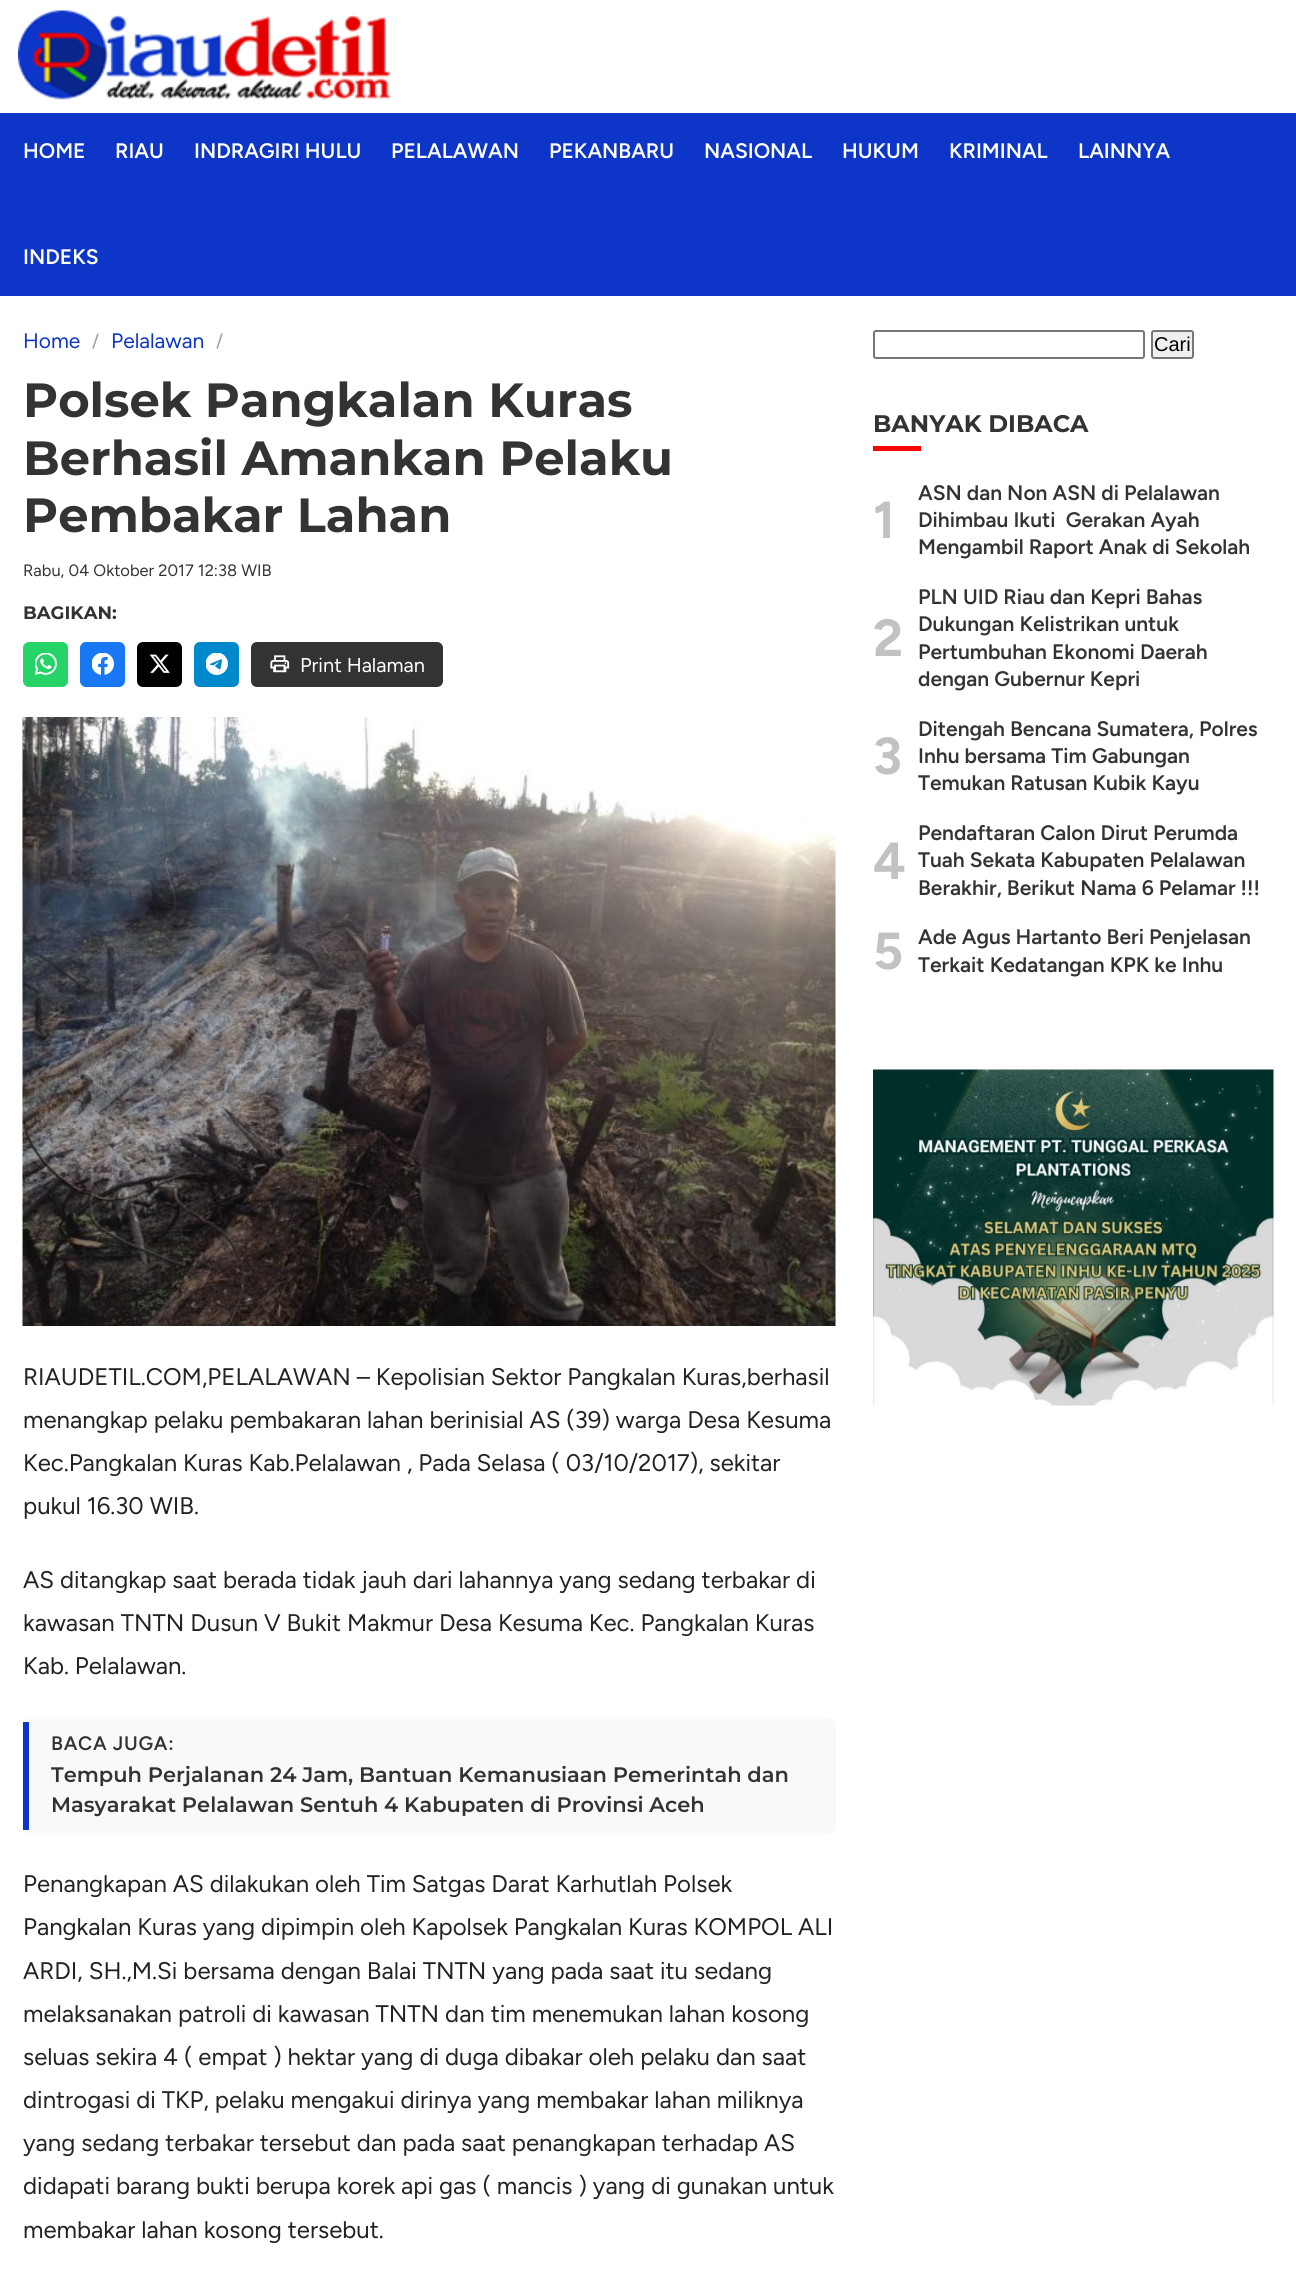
#include <cairo.h>
#include <math.h>
#include <stddef.h>


static void set_color(cairo_t *cr, unsigned color) {
    cairo_set_source_rgb(cr, (color >> 16) / 255.0, (color >> 8 & 255) / 255.0, (color & 255) / 255.0);
}

static void draw_text(cairo_t *cr, double x, double y, const char *s, const char *family, double size, int italic, int bold, unsigned color) {
    cairo_select_font_face(cr, family, italic ? CAIRO_FONT_SLANT_ITALIC : CAIRO_FONT_SLANT_NORMAL,
        bold ? CAIRO_FONT_WEIGHT_BOLD : CAIRO_FONT_WEIGHT_NORMAL);
    cairo_set_font_size(cr, size);
    set_color(cr, color);
    cairo_move_to(cr, x, y);
    cairo_show_text(cr, s);
}

static void draw_spaced(cairo_t *cr, double x, double y, const char *s, double letter, double word) {
    cairo_move_to(cr, x, y);
    while (*s) {
        char ch[5] = {0};
        int n = 0;
        do ch[n++] = *s++; while ((*s & 0xC0) == 0x80);
        cairo_show_text(cr, ch);
        cairo_rel_move_to(cr, letter + word * (*ch == ' '), 0);
    }
}

static void fill_rect(cairo_t *cr, double x, double y, double w, double h, unsigned color) {
    set_color(cr, color);
    cairo_rectangle(cr, x, y, w, h);
    cairo_fill(cr);
}

static void rounded_rect(cairo_t *cr, double x, double y, double w, double h, double r) {
    cairo_new_sub_path(cr);
    cairo_arc(cr, x + w - r, y + h - r, r, 0, M_PI / 2);
    cairo_arc(cr, x + r, y + h - r, r, M_PI / 2, M_PI);
    cairo_arc(cr, x + r, y + r, r, M_PI, 1.5 * M_PI);
    cairo_arc(cr, x + w - r, y + r, r, 1.5 * M_PI, 2 * M_PI);
    cairo_close_path(cr);
}

static void draw_image(cairo_t *cr, const char *path, double x, double y, double w, double h) {
    cairo_surface_t *image = cairo_image_surface_create_from_png(path);
    cairo_save(cr);
    cairo_set_source_surface(cr, image, x, y);
    cairo_rectangle(cr, x, y, w, h);
    cairo_fill(cr);
    cairo_restore(cr);
    cairo_surface_destroy(image);
}

int main(void) {
    cairo_surface_t *surface = cairo_image_surface_create(CAIRO_FORMAT_RGB24, 1296, 2278);
    cairo_t *cr = cairo_create(surface);
    cairo_font_options_t *options = cairo_font_options_create();
    cairo_font_options_set_hint_metrics(options, CAIRO_HINT_METRICS_OFF);
    cairo_font_options_set_hint_style(options, CAIRO_HINT_STYLE_NONE);
    cairo_set_font_options(cr, options);
    cairo_set_miter_limit(cr, 4);
    set_color(cr, 0xFFFFFF);
    cairo_paint(cr);
    draw_image(cr, "assets/img1.png", 18, 10, 373, 90);
    fill_rect(cr, 0, 113, 1296, 183, 0x0D36C9);
    draw_text(cr, 23, 158, "HOME", "Figtree SemiBold", 21, 0, 0, 0xFFFFFF);
    draw_text(cr, 115, 158, "RIAU", "Figtree SemiBold", 21, 0, 0, 0xFFFFFF);
    draw_text(cr, 194, 158, "INDRAGIRI HULU", "Figtree SemiBold", 21, 0, 0, 0xFFFFFF);
    draw_text(cr, 391, 158, "PELALAWAN", "Figtree SemiBold", 21, 0, 0, 0xFFFFFF);
    draw_text(cr, 549, 158, "PEKANBARU", "Figtree SemiBold", 21, 0, 0, 0xFFFFFF);
    draw_text(cr, 704, 158, "NASIONAL", "Figtree SemiBold", 21, 0, 0, 0xFFFFFF);
    draw_text(cr, 842, 158, "HUKUM", "Figtree SemiBold", 21, 0, 0, 0xFFFFFF);
    draw_text(cr, 949, 158, "KRIMINAL", "Figtree SemiBold", 21, 0, 0, 0xFFFFFF);
    draw_text(cr, 1078, 158, "LAINNYA", "Figtree SemiBold", 21, 0, 0, 0xFFFFFF);
    draw_text(cr, 23, 264, "INDEKS", "Figtree SemiBold", 21, 0, 0, 0xFFFFFF);
    draw_text(cr, 23, 348, "Home", "Figtree Light", 21, 0, 0, 0x0D36C9);
    draw_text(cr, 92, 347, "/", "Figtree Light", 18, 0, 0, 0x999999);
    draw_text(cr, 111, 348, "Pelalawan", "Figtree Light", 21, 0, 0, 0x0D36C9);
    draw_text(cr, 216, 347, "/", "Figtree Light", 18, 0, 0, 0x999999);
    draw_text(cr, 23, 417, "Polsek Pangkalan Kuras", "Montserrat Thin", 48, 0, 0, 0x333333);
    draw_text(cr, 23, 475, "Berhasil Amankan Pelaku", "Montserrat Thin", 48, 0, 0, 0x333333);
    draw_text(cr, 23, 532, "Pembakar Lahan", "Montserrat Thin", 48, 0, 0, 0x333333);
    draw_text(cr, 23, 576, "Rabu, 04 Oktober 2017 12:38 WIB", "Figtree Light", 16.5, 0, 0, 0x333333);
    draw_text(cr, 23, 619, "BAGIKAN:", "Montserrat Thin", 18, 0, 0, 0x333333);
    set_color(cr, 0x25D366);
    rounded_rect(cr, 23, 642, 45, 45, 6);
    cairo_fill(cr);
    draw_image(cr, "assets/img2.png", 35, 653, 22, 22);
    set_color(cr, 0x1877F2);
    rounded_rect(cr, 80, 642, 45, 45, 6);
    cairo_fill(cr);
    draw_image(cr, "assets/img3.png", 92, 653, 22, 22);
    set_color(cr, 0x000000);
    rounded_rect(cr, 137, 642, 45, 45, 6);
    cairo_fill(cr);
    draw_image(cr, "assets/img4.png", 149, 654, 21, 19);
    set_color(cr, 0x0088CC);
    rounded_rect(cr, 194, 642, 45, 45, 6);
    cairo_fill(cr);
    draw_image(cr, "assets/img5.png", 206, 653, 22, 22);
    set_color(cr, 0x333333);
    rounded_rect(cr, 251, 642, 192, 45, 6);
    cairo_fill(cr);
    draw_image(cr, "assets/img6.png", 270, 655, 20, 18);
    draw_text(cr, 300, 672, "Print Halaman", "Figtree Light", 20, 0, 0, 0xFFFFFF);
    draw_image(cr, "assets/img7.png", 22, 717, 814, 609);
    draw_text(cr, 23, 1385, "RIAUDETIL.COM,PELALAWAN – Kepolisian Sektor Pangkalan Kuras,berhasil", "Figtree Light", 24, 0, 0, 0x222222);
    draw_text(cr, 23, 1428, "menangkap pelaku pembakaran lahan berinisial AS (39) warga Desa Kesuma", "Figtree Light", 24, 0, 0, 0x222222);
    draw_text(cr, 23, 1471, "Kec.Pangkalan Kuras Kab.Pelalawan , Pada Selasa ( 03/10/2017), sekitar", "Figtree Light", 24, 0, 0, 0x222222);
    draw_text(cr, 23, 1514, "pukul 16.30 WIB.", "Figtree Light", 24, 0, 0, 0x222222);
    draw_text(cr, 23, 1588, "AS ditangkap saat berada tidak jauh dari lahannya yang sedang terbakar di", "Figtree Light", 24, 0, 0, 0x222222);
    draw_text(cr, 23, 1631, "kawasan TNTN Dusun V Bukit Makmur Desa Kesuma Kec. Pangkalan Kuras", "Figtree Light", 24, 0, 0, 0x222222);
    draw_text(cr, 23, 1674, "Kab. Pelalawan.", "Figtree Light", 24, 0, 0, 0x222222);
    set_color(cr, 0xF8F9FA);
    rounded_rect(cr, 23, 1719, 813, 114, 6);
    cairo_fill(cr);
    fill_rect(cr, 23, 1722, 6, 108, 0x0D36C9);
    cairo_select_font_face(cr, "Figtree SemiBold", CAIRO_FONT_SLANT_NORMAL, CAIRO_FONT_WEIGHT_NORMAL);
    cairo_set_font_size(cr, 19.5);
    set_color(cr, 0x333333);
    draw_spaced(cr, 51, 1750, "BACA JUGA:", 0.75, 0);
    draw_text(cr, 51, 1782, "Tempuh Perjalanan 24 Jam, Bantuan Kemanusiaan Pemerintah dan", "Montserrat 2 Thin", 21, 0, 0, 0x333333);
    draw_text(cr, 51, 1812, "Masyarakat Pelalawan Sentuh 4 Kabupaten di Provinsi Aceh", "Montserrat 2 Thin", 21, 0, 0, 0x333333);
    draw_text(cr, 23, 1892, "Penangkapan AS dilakukan oleh Tim Satgas Darat Karhutlah Polsek", "Figtree Light", 24, 0, 0, 0x222222);
    draw_text(cr, 23, 1935, "Pangkalan Kuras yang dipimpin oleh Kapolsek Pangkalan Kuras KOMPOL ALI", "Figtree Light", 24, 0, 0, 0x222222);
    draw_text(cr, 23, 1979, "ARDI, SH.,M.Si bersama dengan Balai TNTN yang pada saat itu sedang", "Figtree Light", 24, 0, 0, 0x222222);
    draw_text(cr, 23, 2022, "melaksanakan patroli di kawasan TNTN dan tim menemukan lahan kosong", "Figtree Light", 24, 0, 0, 0x222222);
    draw_text(cr, 23, 2065, "seluas sekira 4 ( empat ) hektar yang di duga dibakar oleh pelaku dan saat", "Figtree Light", 24, 0, 0, 0x222222);
    draw_text(cr, 23, 2108, "dintrogasi di TKP, pelaku mengakui dirinya yang membakar lahan miliknya", "Figtree Light", 24, 0, 0, 0x222222);
    draw_text(cr, 23, 2151, "yang sedang terbakar tersebut dan pada saat penangkapan terhadap AS", "Figtree Light", 24, 0, 0, 0x222222);
    draw_text(cr, 23, 2194, "didapati barang bukti berupa korek api gas ( mancis ) yang di gunakan untuk", "Figtree Light", 24, 0, 0, 0x222222);
    draw_text(cr, 23, 2238, "membakar lahan kosong tersebut.", "Figtree Light", 24, 0, 0, 0x222222);
    rounded_rect(cr, 874, 331, 270, 27, 2);
    set_color(cr, 0x767676);
    cairo_stroke(cr);
    set_color(cr, 0xEFEFEF);
    rounded_rect(cr, 1152, 331, 41, 27, 2);
    cairo_fill_preserve(cr);
    set_color(cr, 0x767676);
    cairo_stroke(cr);
    draw_text(cr, 1154, 351, "Cari", "Liberation Sans", 20, 0, 0, 0x000000);
    draw_text(cr, 873, 432, "BANYAK DIBACA", "Montserrat Thin", 24, 0, 0, 0x333333);
    fill_rect(cr, 873, 446, 48, 5, 0xFF0000);
    draw_text(cr, 873, 538, "1", "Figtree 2 Light", 52, 0, 0, 0xC2C2C2);
    draw_text(cr, 918, 500, "ASN dan Non ASN di Pelalawan", "Figtree SemiBold", 21, 0, 0, 0x333333);
    draw_text(cr, 918, 527, "Dihimbau Ikuti  Gerakan Ayah", "Figtree SemiBold", 21, 0, 0, 0x333333);
    draw_text(cr, 918, 554, "Mengambil Raport Anak di Sekolah", "Figtree SemiBold", 21, 0, 0, 0x333333);
    draw_text(cr, 873, 656, "2", "Figtree 2 Light", 52, 0, 0, 0xC2C2C2);
    draw_text(cr, 918, 604, "PLN UID Riau dan Kepri Bahas", "Figtree SemiBold", 21, 0, 0, 0x333333);
    draw_text(cr, 918, 631, "Dukungan Kelistrikan untuk", "Figtree SemiBold", 21, 0, 0, 0x333333);
    draw_text(cr, 918, 659, "Pertumbuhan Ekonomi Daerah", "Figtree SemiBold", 21, 0, 0, 0x333333);
    draw_text(cr, 918, 686, "dengan Gubernur Kepri", "Figtree SemiBold", 21, 0, 0, 0x333333);
    draw_text(cr, 873, 774, "3", "Figtree 2 Light", 52, 0, 0, 0xC2C2C2);
    draw_text(cr, 918, 736, "Ditengah Bencana Sumatera, Polres", "Figtree SemiBold", 21, 0, 0, 0x333333);
    draw_text(cr, 918, 763, "Inhu bersama Tim Gabungan", "Figtree SemiBold", 21, 0, 0, 0x333333);
    draw_text(cr, 918, 790, "Temukan Ratusan Kubik Kayu", "Figtree SemiBold", 21, 0, 0, 0x333333);
    draw_text(cr, 873, 879, "4", "Figtree 2 Light", 52, 0, 0, 0xC2C2C2);
    draw_text(cr, 918, 840, "Pendaftaran Calon Dirut Perumda", "Figtree SemiBold", 21, 0, 0, 0x333333);
    draw_text(cr, 918, 867, "Tuah Sekata Kabupaten Pelalawan", "Figtree SemiBold", 21, 0, 0, 0x333333);
    draw_text(cr, 918, 895, "Berakhir, Berikut Nama 6 Pelamar !!!", "Figtree SemiBold", 21, 0, 0, 0x333333);
    draw_text(cr, 873, 969, "5", "Figtree 2 Light", 52, 0, 0, 0xC2C2C2);
    draw_text(cr, 918, 944, "Ade Agus Hartanto Beri Penjelasan", "Figtree SemiBold", 21, 0, 0, 0x333333);
    draw_text(cr, 918, 972, "Terkait Kedatangan KPK ke Inhu", "Figtree SemiBold", 21, 0, 0, 0x333333);
    draw_image(cr, "assets/img8.png", 873, 1069, 401, 337);
    cairo_surface_write_to_png(surface, "output.png");
    cairo_font_options_destroy(options);
    cairo_destroy(cr);
    cairo_surface_destroy(surface);
    return 0;
}
